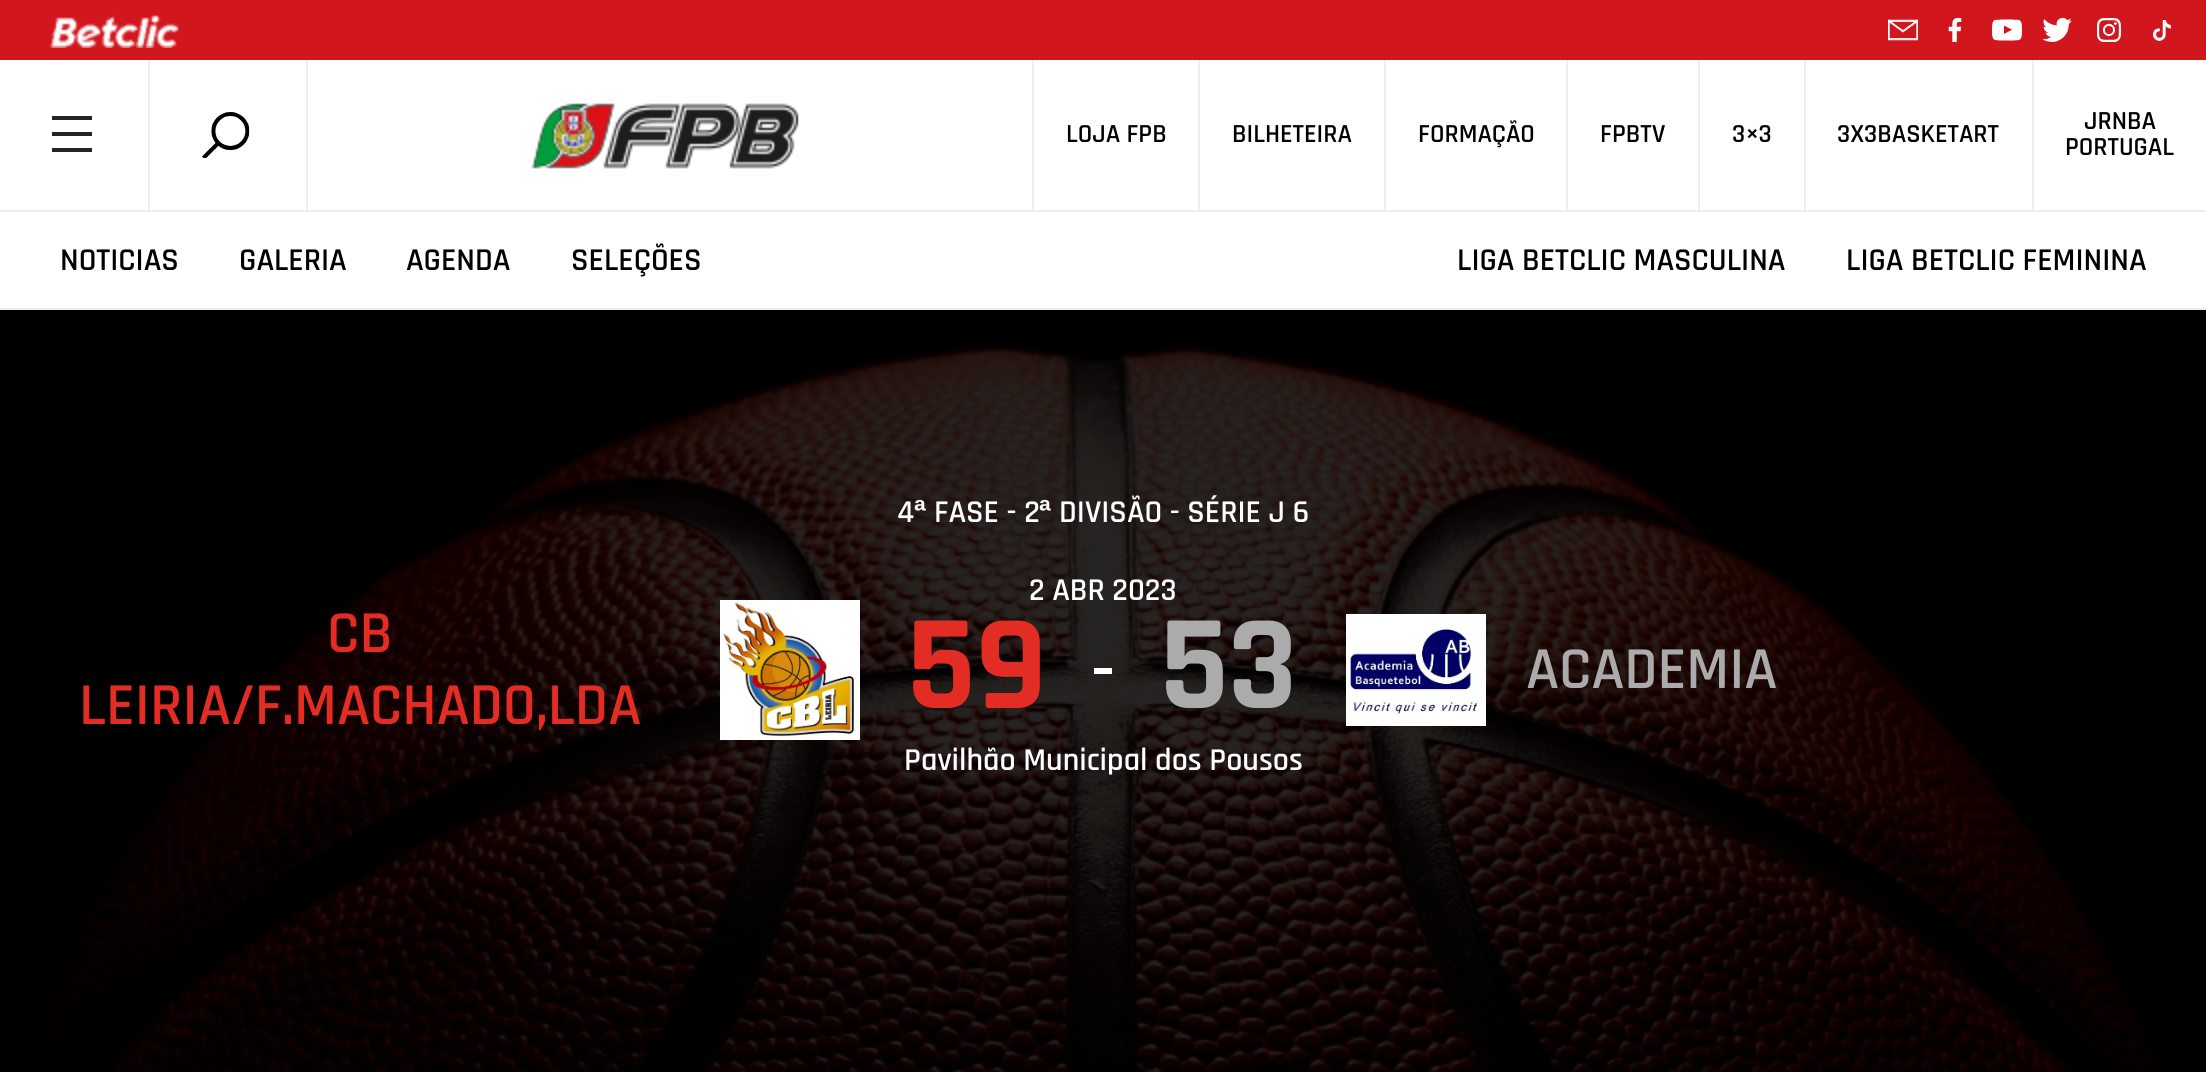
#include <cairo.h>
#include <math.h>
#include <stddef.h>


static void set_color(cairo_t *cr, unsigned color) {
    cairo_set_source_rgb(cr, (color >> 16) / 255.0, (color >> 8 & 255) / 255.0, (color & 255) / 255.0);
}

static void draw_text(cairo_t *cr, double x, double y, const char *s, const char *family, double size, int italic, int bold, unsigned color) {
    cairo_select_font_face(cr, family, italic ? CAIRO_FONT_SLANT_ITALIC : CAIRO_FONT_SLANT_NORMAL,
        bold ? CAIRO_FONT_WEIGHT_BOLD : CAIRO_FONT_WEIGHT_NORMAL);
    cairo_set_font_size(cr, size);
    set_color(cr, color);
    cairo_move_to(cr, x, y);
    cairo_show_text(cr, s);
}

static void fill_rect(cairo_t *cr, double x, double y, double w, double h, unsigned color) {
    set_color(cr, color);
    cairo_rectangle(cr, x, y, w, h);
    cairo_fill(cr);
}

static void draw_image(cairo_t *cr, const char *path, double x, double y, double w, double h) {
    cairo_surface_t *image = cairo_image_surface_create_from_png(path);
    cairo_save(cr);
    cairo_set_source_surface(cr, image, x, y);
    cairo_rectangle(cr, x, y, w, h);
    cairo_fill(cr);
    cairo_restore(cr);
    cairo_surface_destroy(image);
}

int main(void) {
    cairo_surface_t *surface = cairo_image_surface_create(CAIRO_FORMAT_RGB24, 2206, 1072);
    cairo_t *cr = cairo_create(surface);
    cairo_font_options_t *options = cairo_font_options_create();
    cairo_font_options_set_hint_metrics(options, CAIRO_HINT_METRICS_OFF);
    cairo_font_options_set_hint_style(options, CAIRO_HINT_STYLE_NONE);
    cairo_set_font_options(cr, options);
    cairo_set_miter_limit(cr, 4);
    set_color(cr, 0xFFFFFF);
    cairo_paint(cr);
    fill_rect(cr, 0, 308, 2206, 2, 0xEEEEEE);
    fill_rect(cr, 0, 0, 2206, 60, 0xD2161E);
    draw_image(cr, "assets/img1.png", 49, 15, 130, 33);
    draw_image(cr, "assets/img2.png", 1888, 19, 30, 22);
    draw_image(cr, "assets/img3.png", 1948, 18, 14, 24);
    draw_image(cr, "assets/img4.png", 1992, 19, 30, 22);
    draw_image(cr, "assets/img5.png", 2042, 18, 30, 24);
    draw_image(cr, "assets/img6.png", 2097, 18, 24, 24);
    draw_image(cr, "assets/img7.png", 2153, 20, 18, 21);
    fill_rect(cr, 0, 210, 2206, 2, 0xEEEEEE);
    fill_rect(cr, 148, 60, 2, 150, 0xEEEEEE);
    draw_image(cr, "assets/img8.png", 52, 116, 40, 36);
    fill_rect(cr, 306, 60, 2, 150, 0xEEEEEE);
    draw_image(cr, "assets/img9.png", 202, 112, 48, 46);
    draw_image(cr, "assets/img10.png", 531, 103, 268, 66);
    fill_rect(cr, 1032, 60, 2, 150, 0xEEEEEE);
    draw_text(cr, 1066, 142, "LOJA FPB", "Rajdhani SemiBold", 26.25, 0, 0, 0x000000);
    fill_rect(cr, 1198, 60, 2, 150, 0xEEEEEE);
    draw_text(cr, 1232, 142, "BILHETEIRA", "Rajdhani SemiBold", 26.25, 0, 0, 0x000000);
    fill_rect(cr, 1384, 60, 2, 150, 0xEEEEEE);
    draw_text(cr, 1418, 142, "FORMAÇÃO", "Rajdhani SemiBold", 26.25, 0, 0, 0x000000);
    fill_rect(cr, 1566, 60, 2, 150, 0xEEEEEE);
    draw_text(cr, 1600, 142, "FPBTV", "Rajdhani SemiBold", 26.25, 0, 0, 0x000000);
    fill_rect(cr, 1698, 60, 2, 150, 0xEEEEEE);
    draw_text(cr, 1732, 142, "3×3", "Rajdhani SemiBold", 26.25, 0, 0, 0x000000);
    fill_rect(cr, 1804, 60, 2, 150, 0xEEEEEE);
    draw_text(cr, 1837, 142, "3X3BASKETART", "Rajdhani SemiBold", 26.25, 0, 0, 0x000000);
    fill_rect(cr, 2032, 60, 2, 150, 0xEEEEEE);
    draw_text(cr, 2084, 129, "JRNBA", "Rajdhani SemiBold", 26.25, 0, 0, 0x000000);
    draw_text(cr, 2065, 155, "PORTUGAL", "Rajdhani SemiBold", 26.25, 0, 0, 0x000000);
    draw_text(cr, 60, 270, "NOTICIAS", "Rajdhani SemiBold", 32, 0, 0, 0x000000);
    draw_text(cr, 239, 270, "GALERIA", "Rajdhani SemiBold", 32, 0, 0, 0x000000);
    draw_text(cr, 406, 270, "AGENDA", "Rajdhani SemiBold", 32, 0, 0, 0x000000);
    draw_text(cr, 571, 270, "SELEÇÕES", "Rajdhani SemiBold", 32, 0, 0, 0x000000);
    draw_text(cr, 1457, 270, "LIGA BETCLIC MASCULINA", "Rajdhani SemiBold", 32, 0, 0, 0x000000);
    draw_text(cr, 1846, 270, "LIGA BETCLIC FEMININA", "Rajdhani SemiBold", 32, 0, 0, 0x000000);
    draw_image(cr, "assets/img11.png", 0, 310, 2206, 762);
    draw_text(cr, 897, 522, "4", "Rajdhani SemiBold", 32, 0, 0, 0xFFFFFF);
    draw_text(cr, 914, 522, "ª", "Liberation Sans", 32, 0, 1, 0xFFFFFF);
    draw_text(cr, 934, 522, "FASE - 2", "Rajdhani SemiBold", 32, 0, 0, 0xFFFFFF);
    draw_text(cr, 1039, 522, "ª", "Liberation Sans", 32, 0, 1, 0xFFFFFF);
    draw_text(cr, 1059, 522, "DIVISÃO - SÉRIE J 6", "Rajdhani SemiBold", 32, 0, 0, 0xFFFFFF);
    draw_text(cr, 1029, 600, "2 ABR 2023", "Rajdhani SemiBold", 32, 0, 0, 0xFFFFFF);
    draw_text(cr, 327, 652, "CB", "Rajdhani SemiBold", 60, 0, 0, 0xE32C23);
    draw_text(cr, 79, 724, "LEIRIA/F.MACHADO,LDA", "Rajdhani SemiBold", 60, 0, 0, 0xE32C23);
    draw_image(cr, "assets/img12.png", 720, 600, 140, 140);
    draw_text(cr, 907, 708, "59", "Rajdhani", 136, 0, 1, 0xE32C23);
    fill_rect(cr, 1094, 668, 18, 6, 0xFFFFFF);
    draw_text(cr, 1160, 708, "53", "Rajdhani", 136, 0, 1, 0xACABAB);
    draw_image(cr, "assets/img13.png", 1346, 614, 140, 112);
    draw_text(cr, 1526, 688, "ACADEMIA", "Rajdhani SemiBold", 60, 0, 0, 0xACABAB);
    draw_text(cr, 904, 770, "Pavilhão Municipal dos Pousos", "Rajdhani SemiBold", 32, 0, 0, 0xFFFFFF);
    cairo_surface_write_to_png(surface, "output.png");
    cairo_font_options_destroy(options);
    cairo_destroy(cr);
    cairo_surface_destroy(surface);
    return 0;
}
